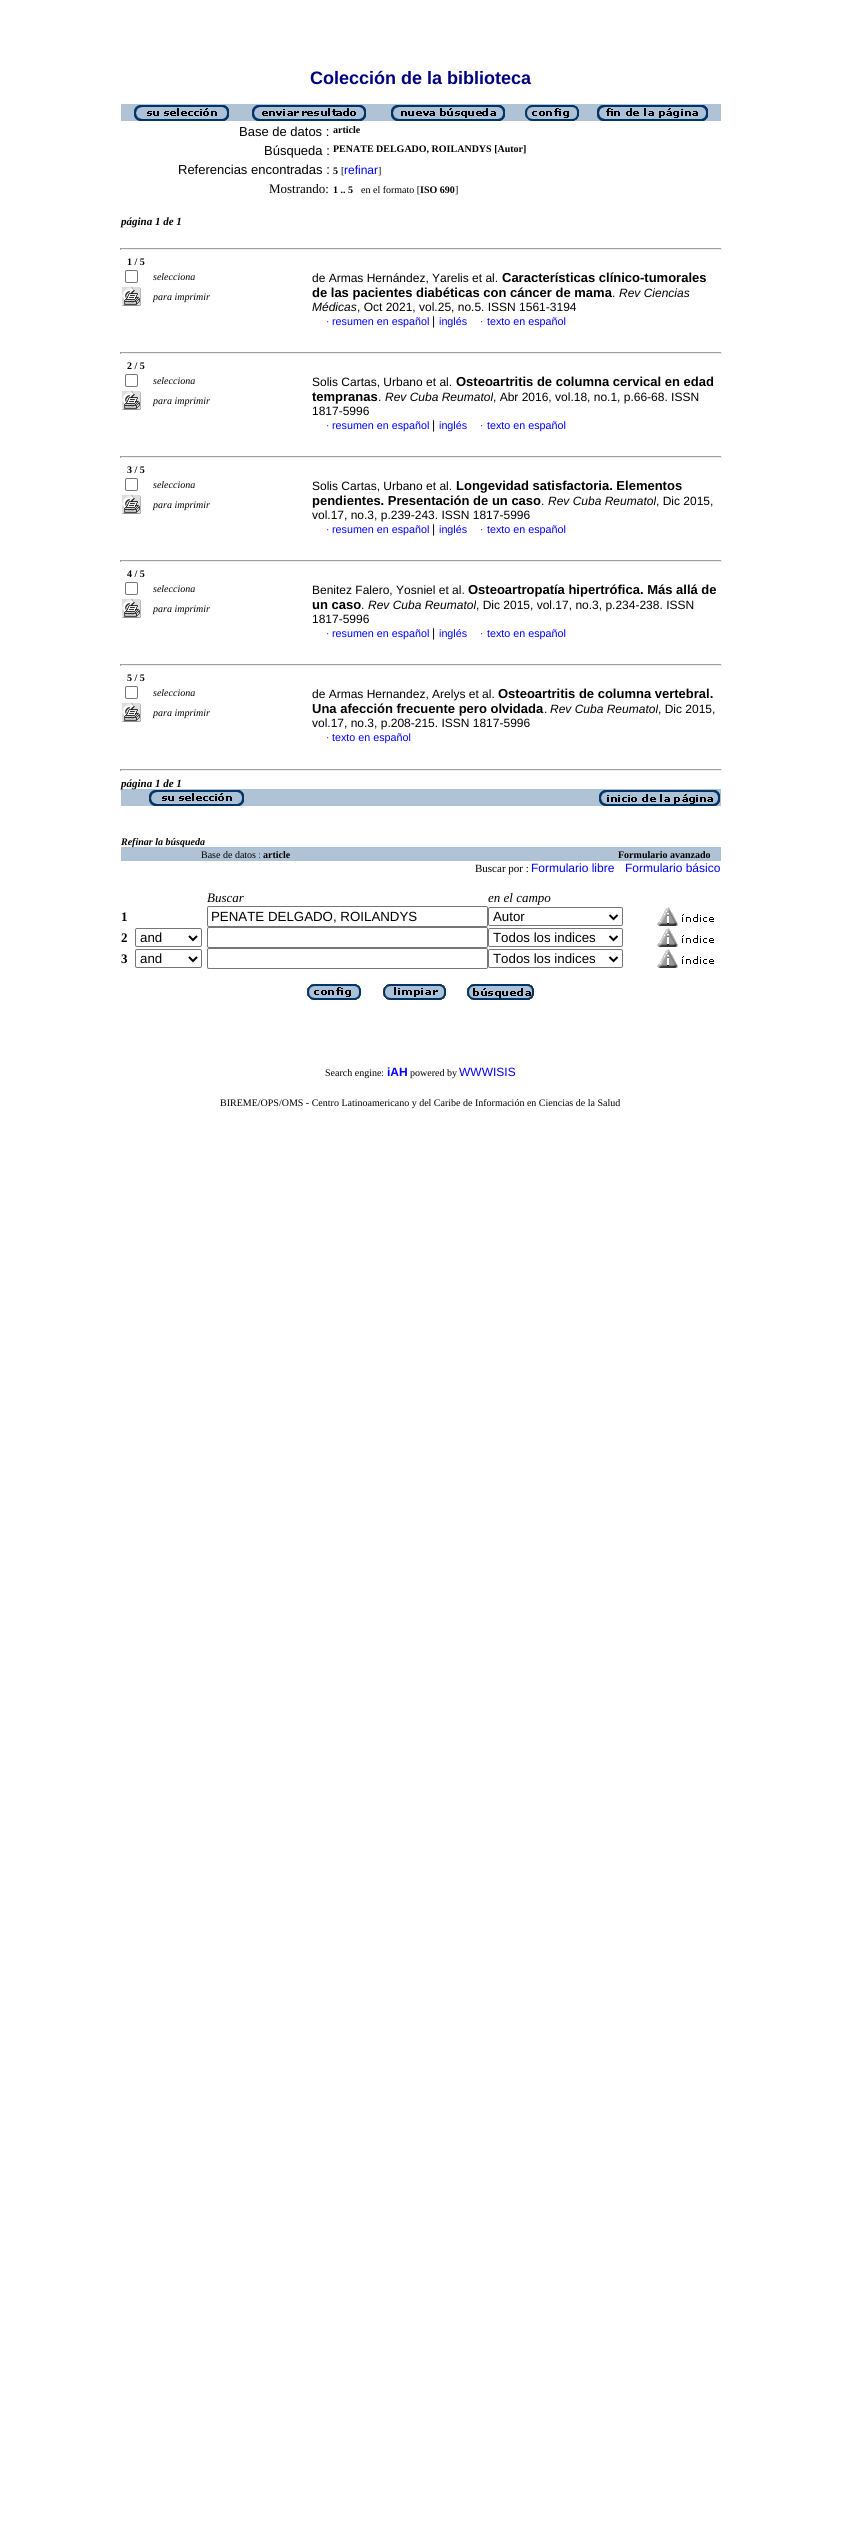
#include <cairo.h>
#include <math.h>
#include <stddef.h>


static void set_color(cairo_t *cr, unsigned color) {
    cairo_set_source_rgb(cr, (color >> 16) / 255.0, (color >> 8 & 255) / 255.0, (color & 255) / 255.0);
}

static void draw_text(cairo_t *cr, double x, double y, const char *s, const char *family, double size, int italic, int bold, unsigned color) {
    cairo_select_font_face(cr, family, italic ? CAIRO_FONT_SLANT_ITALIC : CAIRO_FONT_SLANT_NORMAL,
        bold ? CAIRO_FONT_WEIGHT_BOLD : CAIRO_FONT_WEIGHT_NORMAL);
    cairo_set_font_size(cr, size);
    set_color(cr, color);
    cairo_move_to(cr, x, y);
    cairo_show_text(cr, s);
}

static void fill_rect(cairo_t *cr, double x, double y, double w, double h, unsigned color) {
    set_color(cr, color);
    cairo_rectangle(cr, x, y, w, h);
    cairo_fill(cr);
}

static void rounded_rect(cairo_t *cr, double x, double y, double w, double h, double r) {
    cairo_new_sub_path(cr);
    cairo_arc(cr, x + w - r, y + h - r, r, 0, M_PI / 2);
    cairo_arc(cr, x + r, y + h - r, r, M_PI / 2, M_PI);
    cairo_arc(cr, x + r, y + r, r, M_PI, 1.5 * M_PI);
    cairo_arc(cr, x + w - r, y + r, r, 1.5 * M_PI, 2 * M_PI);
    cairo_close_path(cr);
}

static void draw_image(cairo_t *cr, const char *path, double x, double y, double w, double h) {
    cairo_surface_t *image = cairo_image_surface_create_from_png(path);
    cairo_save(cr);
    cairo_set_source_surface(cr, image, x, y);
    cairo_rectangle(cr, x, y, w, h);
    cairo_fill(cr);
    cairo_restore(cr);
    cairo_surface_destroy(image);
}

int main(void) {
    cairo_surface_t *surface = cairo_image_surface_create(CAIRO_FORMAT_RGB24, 841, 2542);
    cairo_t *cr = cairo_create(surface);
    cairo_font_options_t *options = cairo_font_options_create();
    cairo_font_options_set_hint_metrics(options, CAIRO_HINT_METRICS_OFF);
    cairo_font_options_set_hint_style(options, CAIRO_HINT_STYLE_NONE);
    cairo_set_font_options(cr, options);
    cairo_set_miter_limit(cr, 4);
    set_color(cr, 0xFFFFFF);
    cairo_paint(cr);
    draw_text(cr, 310, 84, "Colección de la biblioteca", "Liberation Sans", 18, 0, 1, 0x000080);
    fill_rect(cr, 121, 104, 600, 17, 0xB0C2D5);
    draw_image(cr, "assets/img1.png", 134, 105, 95, 16);
    draw_image(cr, "assets/img2.png", 252, 105, 114, 16);
    draw_image(cr, "assets/img3.png", 391, 105, 114, 16);
    draw_image(cr, "assets/img4.png", 525, 105, 54, 16);
    draw_image(cr, "assets/img5.png", 597, 105, 111, 16);
    draw_text(cr, 239, 136, "Base de datos :", "Liberation Sans", 13, 0, 0, 0x000000);
    draw_text(cr, 333, 133, "article", "Liberation Serif", 10, 0, 1, 0x000000);
    draw_text(cr, 264, 155, "Búsqueda :", "Liberation Sans", 13, 0, 0, 0x000000);
    draw_text(cr, 333, 152, "PENATE DELGADO, ROILANDYS [Autor]", "Liberation Serif", 10, 0, 1, 0x000000);
    draw_text(cr, 178, 174, "Referencias encontradas :", "Liberation Sans", 13, 0, 0, 0x000000);
    draw_text(cr, 333, 174, "5", "Liberation Serif", 10, 0, 1, 0x000000);
    draw_text(cr, 341, 174, "[", "Liberation Serif", 10, 0, 0, 0x000000);
    draw_text(cr, 344, 174, "refinar", "Liberation Sans", 12, 0, 0, 0x0000FF);
    draw_text(cr, 378, 174, "]", "Liberation Serif", 10, 0, 0, 0x000000);
    draw_text(cr, 269, 193, "Mostrando:", "Liberation Serif", 13, 0, 0, 0x000000);
    draw_text(cr, 333, 193, "1 .. 5", "Liberation Serif", 10, 0, 1, 0x000000);
    draw_text(cr, 361, 193, "en el formato [", "Liberation Serif", 10, 0, 0, 0x000000);
    draw_text(cr, 420, 193, "ISO 690", "Liberation Serif", 10, 0, 1, 0x000000);
    draw_text(cr, 455, 193, "]", "Liberation Serif", 10, 0, 0, 0x000000);
    draw_text(cr, 121, 225, "página 1 de 1", "Liberation Serif", 11, 1, 1, 0x000000);
    fill_rect(cr, 120, 248, 602, 1, 0x9F9F9F);
    fill_rect(cr, 721, 248, 1, 2, 0xEEEEEE);
    fill_rect(cr, 120, 249, 602, 1, 0xEEEEEE);
    fill_rect(cr, 120, 248, 1, 2, 0x9F9F9F);
    draw_text(cr, 127, 265, "1 / 5", "Liberation Serif", 10, 0, 1, 0x000000);
    rounded_rect(cr, 125.5, 270.5, 12, 12, 1.5);
    set_color(cr, 0x767676);
    cairo_set_line_width(cr, 1);
    cairo_stroke(cr);
    draw_text(cr, 153, 280, "selecciona", "Liberation Serif", 10, 1, 0, 0x000000);
    draw_image(cr, "assets/img6.png", 121, 286, 20, 20);
    draw_text(cr, 153, 300, "para imprimir", "Liberation Serif", 10, 1, 0, 0x000000);
    draw_text(cr, 312, 282, "de Armas Hernández, Yarelis et al.", "Liberation Sans", 12, 0, 0, 0x000000);
    draw_text(cr, 502, 282, "Características clínico-tumorales", "Liberation Sans", 13, 0, 1, 0x000000);
    draw_text(cr, 312, 297, "de las pacientes diabéticas con cáncer de mama", "Liberation Sans", 13, 0, 1, 0x000000);
    draw_text(cr, 612, 297, ".", "Liberation Sans", 12, 0, 0, 0x000000);
    draw_text(cr, 619, 297, "Rev Ciencias", "Liberation Sans", 12, 1, 0, 0x000000);
    draw_text(cr, 312, 311, "Médicas", "Liberation Sans", 12, 1, 0, 0x000000);
    draw_text(cr, 357, 311, ", Oct 2021, vol.25, no.5. ISSN 1561-3194", "Liberation Sans", 12, 0, 0, 0x000000);
    draw_text(cr, 326, 325, "·", "Liberation Serif", 10, 0, 0, 0x000080);
    draw_text(cr, 332, 325, "resumen en español", "Liberation Sans", 10.75, 0, 0, 0x0000FF);
    draw_text(cr, 432, 325, "|", "Liberation Sans", 12, 0, 0, 0x000000);
    draw_text(cr, 439, 325, "inglés", "Liberation Sans", 10.75, 0, 0, 0x0000FF);
    draw_text(cr, 480, 325, "·", "Liberation Serif", 10, 0, 0, 0x000080);
    draw_text(cr, 487, 325, "texto en español", "Liberation Sans", 10.75, 0, 0, 0x0000FF);
    fill_rect(cr, 120, 352, 602, 1, 0x9F9F9F);
    fill_rect(cr, 721, 352, 1, 2, 0xEEEEEE);
    fill_rect(cr, 120, 353, 602, 1, 0xEEEEEE);
    fill_rect(cr, 120, 352, 1, 2, 0x9F9F9F);
    draw_text(cr, 127, 369, "2 / 5", "Liberation Serif", 10, 0, 1, 0x000000);
    rounded_rect(cr, 125.5, 374.5, 12, 12, 1.5);
    set_color(cr, 0x767676);
    cairo_stroke(cr);
    draw_text(cr, 153, 384, "selecciona", "Liberation Serif", 10, 1, 0, 0x000000);
    draw_image(cr, "assets/img6.png", 121, 390, 20, 20);
    draw_text(cr, 153, 404, "para imprimir", "Liberation Serif", 10, 1, 0, 0x000000);
    draw_text(cr, 312, 386, "Solis Cartas, Urbano et al.", "Liberation Sans", 12, 0, 0, 0x000000);
    draw_text(cr, 456, 386, "Osteoartritis de columna cervical en edad", "Liberation Sans", 13, 0, 1, 0x000000);
    draw_text(cr, 312, 401, "tempranas", "Liberation Sans", 13, 0, 1, 0x000000);
    draw_text(cr, 378, 401, ".", "Liberation Sans", 12, 0, 0, 0x000000);
    draw_text(cr, 385, 401, "Rev Cuba Reumatol", "Liberation Sans", 12, 1, 0, 0x000000);
    draw_text(cr, 493, 401, ", Abr 2016, vol.18, no.1, p.66-68. ISSN", "Liberation Sans", 12, 0, 0, 0x000000);
    draw_text(cr, 312, 415, "1817-5996", "Liberation Sans", 12, 0, 0, 0x000000);
    draw_text(cr, 326, 429, "·", "Liberation Serif", 10, 0, 0, 0x000080);
    draw_text(cr, 332, 429, "resumen en español", "Liberation Sans", 10.75, 0, 0, 0x0000FF);
    draw_text(cr, 432, 429, "|", "Liberation Sans", 12, 0, 0, 0x000000);
    draw_text(cr, 439, 429, "inglés", "Liberation Sans", 10.75, 0, 0, 0x0000FF);
    draw_text(cr, 480, 429, "·", "Liberation Serif", 10, 0, 0, 0x000080);
    draw_text(cr, 487, 429, "texto en español", "Liberation Sans", 10.75, 0, 0, 0x0000FF);
    fill_rect(cr, 120, 456, 602, 1, 0x9F9F9F);
    fill_rect(cr, 721, 456, 1, 2, 0xEEEEEE);
    fill_rect(cr, 120, 457, 602, 1, 0xEEEEEE);
    fill_rect(cr, 120, 456, 1, 2, 0x9F9F9F);
    draw_text(cr, 127, 473, "3 / 5", "Liberation Serif", 10, 0, 1, 0x000000);
    rounded_rect(cr, 125.5, 478.5, 12, 12, 1.5);
    set_color(cr, 0x767676);
    cairo_stroke(cr);
    draw_text(cr, 153, 488, "selecciona", "Liberation Serif", 10, 1, 0, 0x000000);
    draw_image(cr, "assets/img6.png", 121, 494, 20, 20);
    draw_text(cr, 153, 508, "para imprimir", "Liberation Serif", 10, 1, 0, 0x000000);
    draw_text(cr, 312, 490, "Solis Cartas, Urbano et al.", "Liberation Sans", 12, 0, 0, 0x000000);
    draw_text(cr, 456, 490, "Longevidad satisfactoria. Elementos", "Liberation Sans", 13, 0, 1, 0x000000);
    draw_text(cr, 312, 505, "pendientes. Presentación de un caso", "Liberation Sans", 13, 0, 1, 0x000000);
    draw_text(cr, 541, 505, ".", "Liberation Sans", 12, 0, 0, 0x000000);
    draw_text(cr, 548, 505, "Rev Cuba Reumatol", "Liberation Sans", 12, 1, 0, 0x000000);
    draw_text(cr, 656, 505, ", Dic 2015,", "Liberation Sans", 12, 0, 0, 0x000000);
    draw_text(cr, 312, 519, "vol.17, no.3, p.239-243. ISSN 1817-5996", "Liberation Sans", 12, 0, 0, 0x000000);
    draw_text(cr, 326, 533, "·", "Liberation Serif", 10, 0, 0, 0x000080);
    draw_text(cr, 332, 533, "resumen en español", "Liberation Sans", 10.75, 0, 0, 0x0000FF);
    draw_text(cr, 432, 533, "|", "Liberation Sans", 12, 0, 0, 0x000000);
    draw_text(cr, 439, 533, "inglés", "Liberation Sans", 10.75, 0, 0, 0x0000FF);
    draw_text(cr, 480, 533, "·", "Liberation Serif", 10, 0, 0, 0x000080);
    draw_text(cr, 487, 533, "texto en español", "Liberation Sans", 10.75, 0, 0, 0x0000FF);
    fill_rect(cr, 120, 560, 602, 1, 0x9F9F9F);
    fill_rect(cr, 721, 560, 1, 2, 0xEEEEEE);
    fill_rect(cr, 120, 561, 602, 1, 0xEEEEEE);
    fill_rect(cr, 120, 560, 1, 2, 0x9F9F9F);
    draw_text(cr, 127, 577, "4 / 5", "Liberation Serif", 10, 0, 1, 0x000000);
    rounded_rect(cr, 125.5, 582.5, 12, 12, 1.5);
    set_color(cr, 0x767676);
    cairo_stroke(cr);
    draw_text(cr, 153, 592, "selecciona", "Liberation Serif", 10, 1, 0, 0x000000);
    draw_image(cr, "assets/img6.png", 121, 598, 20, 20);
    draw_text(cr, 153, 612, "para imprimir", "Liberation Serif", 10, 1, 0, 0x000000);
    draw_text(cr, 312, 594, "Benitez Falero, Yosniel et al.", "Liberation Sans", 12, 0, 0, 0x000000);
    draw_text(cr, 468, 594, "Osteoartropatía hipertrófica. Más allá de", "Liberation Sans", 13, 0, 1, 0x000000);
    draw_text(cr, 312, 609, "un caso", "Liberation Sans", 13, 0, 1, 0x000000);
    draw_text(cr, 361, 609, ".", "Liberation Sans", 12, 0, 0, 0x000000);
    draw_text(cr, 368, 609, "Rev Cuba Reumatol", "Liberation Sans", 12, 1, 0, 0x000000);
    draw_text(cr, 476, 609, ", Dic 2015, vol.17, no.3, p.234-238. ISSN", "Liberation Sans", 12, 0, 0, 0x000000);
    draw_text(cr, 312, 623, "1817-5996", "Liberation Sans", 12, 0, 0, 0x000000);
    draw_text(cr, 326, 637, "·", "Liberation Serif", 10, 0, 0, 0x000080);
    draw_text(cr, 332, 637, "resumen en español", "Liberation Sans", 10.75, 0, 0, 0x0000FF);
    draw_text(cr, 432, 637, "|", "Liberation Sans", 12, 0, 0, 0x000000);
    draw_text(cr, 439, 637, "inglés", "Liberation Sans", 10.75, 0, 0, 0x0000FF);
    draw_text(cr, 480, 637, "·", "Liberation Serif", 10, 0, 0, 0x000080);
    draw_text(cr, 487, 637, "texto en español", "Liberation Sans", 10.75, 0, 0, 0x0000FF);
    fill_rect(cr, 120, 664, 602, 1, 0x9F9F9F);
    fill_rect(cr, 721, 664, 1, 2, 0xEEEEEE);
    fill_rect(cr, 120, 665, 602, 1, 0xEEEEEE);
    fill_rect(cr, 120, 664, 1, 2, 0x9F9F9F);
    draw_text(cr, 127, 681, "5 / 5", "Liberation Serif", 10, 0, 1, 0x000000);
    rounded_rect(cr, 125.5, 686.5, 12, 12, 1.5);
    set_color(cr, 0x767676);
    cairo_stroke(cr);
    draw_text(cr, 153, 696, "selecciona", "Liberation Serif", 10, 1, 0, 0x000000);
    draw_image(cr, "assets/img6.png", 121, 702, 20, 20);
    draw_text(cr, 153, 716, "para imprimir", "Liberation Serif", 10, 1, 0, 0x000000);
    draw_text(cr, 312, 698, "de Armas Hernandez, Arelys et al.", "Liberation Sans", 12, 0, 0, 0x000000);
    draw_text(cr, 498, 698, "Osteoartritis de columna vertebral.", "Liberation Sans", 13, 0, 1, 0x000000);
    draw_text(cr, 312, 713, "Una afección frecuente pero olvidada", "Liberation Sans", 13, 0, 1, 0x000000);
    draw_text(cr, 544, 713, ".", "Liberation Sans", 12, 0, 0, 0x000000);
    draw_text(cr, 550, 713, "Rev Cuba Reumatol", "Liberation Sans", 12, 1, 0, 0x000000);
    draw_text(cr, 658, 713, ", Dic 2015,", "Liberation Sans", 12, 0, 0, 0x000000);
    draw_text(cr, 312, 727, "vol.17, no.3, p.208-215. ISSN 1817-5996", "Liberation Sans", 12, 0, 0, 0x000000);
    draw_text(cr, 326, 741, "·", "Liberation Serif", 10, 0, 0, 0x000080);
    draw_text(cr, 332, 741, "texto en español", "Liberation Sans", 10.75, 0, 0, 0x0000FF);
    fill_rect(cr, 120, 769, 602, 1, 0x9F9F9F);
    fill_rect(cr, 721, 769, 1, 2, 0xEEEEEE);
    fill_rect(cr, 120, 770, 602, 1, 0xEEEEEE);
    fill_rect(cr, 120, 769, 1, 2, 0x9F9F9F);
    fill_rect(cr, 121, 789, 600, 17, 0xB0C2D5);
    draw_text(cr, 121, 787, "página 1 de 1", "Liberation Serif", 11, 1, 1, 0x000000);
    draw_image(cr, "assets/img1.png", 149, 790, 95, 16);
    draw_image(cr, "assets/img7.png", 599, 790, 121, 16);
    fill_rect(cr, 121, 847, 600, 14, 0xB0C2D5);
    draw_text(cr, 121, 845, "Refinar la búsqueda", "Liberation Serif", 10, 1, 1, 0x000000);
    draw_text(cr, 201, 858, "Base de datos :", "Liberation Serif", 10, 0, 0, 0x000000);
    draw_text(cr, 263, 858, "article", "Liberation Serif", 10, 0, 1, 0x000000);
    draw_text(cr, 618, 858, "Formulario avanzado", "Liberation Serif", 10, 0, 1, 0x000000);
    draw_text(cr, 475, 872, "Buscar por :", "Liberation Serif", 11, 0, 0, 0x000000);
    draw_text(cr, 531, 872, "Formulario libre", "Liberation Sans", 12, 0, 0, 0x0000FF);
    draw_text(cr, 625, 872, "Formulario básico", "Liberation Sans", 12, 0, 0, 0x0000FF);
    draw_text(cr, 207, 902, "Buscar", "Liberation Serif", 13, 1, 0, 0x000000);
    draw_text(cr, 488, 902, "en el campo", "Liberation Serif", 13, 1, 0, 0x000000);
    draw_text(cr, 121, 921, "1", "Liberation Serif", 13, 0, 1, 0x000000);
    rounded_rect(cr, 207.5, 906.5, 280, 20, 1.5);
    set_color(cr, 0x767676);
    cairo_stroke(cr);
    draw_text(cr, 211, 921, "PENATE DELGADO, ROILANDYS", "Liberation Sans", 13.3, 0, 0, 0x000000);
    rounded_rect(cr, 488.5, 907.5, 134, 18, 1.5);
    set_color(cr, 0x767676);
    cairo_stroke(cr);
    cairo_new_path(cr);
    cairo_move_to(cr, 609.5, 915);
    cairo_line_to(cr, 613.5, 919);
    cairo_line_to(cr, 617.5, 915);
    set_color(cr, 0x000000);
    cairo_set_line_width(cr, 2);
    cairo_stroke(cr);
    draw_text(cr, 493, 921, "Autor", "Liberation Sans", 13.3, 0, 0, 0x000000);
    draw_image(cr, "assets/img8.png", 657, 907, 57, 19);
    draw_text(cr, 121, 942, "2", "Liberation Serif", 13, 0, 1, 0x000000);
    rounded_rect(cr, 135.5, 928.5, 66, 18, 1.5);
    set_color(cr, 0x767676);
    cairo_set_line_width(cr, 1);
    cairo_stroke(cr);
    cairo_new_path(cr);
    cairo_move_to(cr, 189, 936);
    cairo_line_to(cr, 193, 940);
    cairo_line_to(cr, 197, 936);
    set_color(cr, 0x000000);
    cairo_set_line_width(cr, 2);
    cairo_stroke(cr);
    draw_text(cr, 140, 942, "and", "Liberation Sans", 13.3, 0, 0, 0x000000);
    rounded_rect(cr, 207.5, 927.5, 280, 20, 1.5);
    set_color(cr, 0x767676);
    cairo_set_line_width(cr, 1);
    cairo_stroke(cr);
    rounded_rect(cr, 488.5, 928.5, 134, 18, 1.5);
    cairo_stroke(cr);
    cairo_new_path(cr);
    cairo_move_to(cr, 609.5, 936);
    cairo_line_to(cr, 613.5, 940);
    cairo_line_to(cr, 617.5, 936);
    set_color(cr, 0x000000);
    cairo_set_line_width(cr, 2);
    cairo_stroke(cr);
    draw_text(cr, 493, 942, "Todos los indices", "Liberation Sans", 13.3, 0, 0, 0x000000);
    draw_image(cr, "assets/img8.png", 657, 928, 57, 19);
    draw_text(cr, 121, 963, "3", "Liberation Serif", 13, 0, 1, 0x000000);
    rounded_rect(cr, 135.5, 949.5, 66, 18, 1.5);
    set_color(cr, 0x767676);
    cairo_set_line_width(cr, 1);
    cairo_stroke(cr);
    cairo_new_path(cr);
    cairo_move_to(cr, 189, 957);
    cairo_line_to(cr, 193, 961);
    cairo_line_to(cr, 197, 957);
    set_color(cr, 0x000000);
    cairo_set_line_width(cr, 2);
    cairo_stroke(cr);
    draw_text(cr, 140, 963, "and", "Liberation Sans", 13.3, 0, 0, 0x000000);
    rounded_rect(cr, 207.5, 948.5, 280, 20, 1.5);
    set_color(cr, 0x767676);
    cairo_set_line_width(cr, 1);
    cairo_stroke(cr);
    rounded_rect(cr, 488.5, 949.5, 134, 18, 1.5);
    cairo_stroke(cr);
    cairo_new_path(cr);
    cairo_move_to(cr, 609.5, 957);
    cairo_line_to(cr, 613.5, 961);
    cairo_line_to(cr, 617.5, 957);
    set_color(cr, 0x000000);
    cairo_set_line_width(cr, 2);
    cairo_stroke(cr);
    draw_text(cr, 493, 963, "Todos los indices", "Liberation Sans", 13.3, 0, 0, 0x000000);
    draw_image(cr, "assets/img8.png", 657, 949, 57, 19);
    draw_image(cr, "assets/img9.png", 307, 984, 54, 16);
    draw_image(cr, "assets/img10.png", 383, 984, 63, 16);
    draw_image(cr, "assets/img11.png", 467, 984, 67, 16);
    draw_text(cr, 325, 1076, "Search engine:", "Liberation Serif", 10, 0, 0, 0x000000);
    draw_text(cr, 387, 1076, "iAH", "Liberation Sans", 12, 0, 1, 0x0000FF);
    draw_text(cr, 410, 1076, "powered by", "Liberation Serif", 10, 0, 0, 0x000000);
    draw_text(cr, 459, 1076, "WWWISIS", "Liberation Sans", 12, 0, 0, 0x0000FF);
    draw_text(cr, 220, 1106, "BIREME/OPS/OMS - Centro Latinoamericano y del Caribe de Información en Ciencias de la Salud", "Liberation Serif", 10, 0, 0, 0x000000);
    cairo_surface_write_to_png(surface, "output.png");
    cairo_font_options_destroy(options);
    cairo_destroy(cr);
    cairo_surface_destroy(surface);
    return 0;
}
